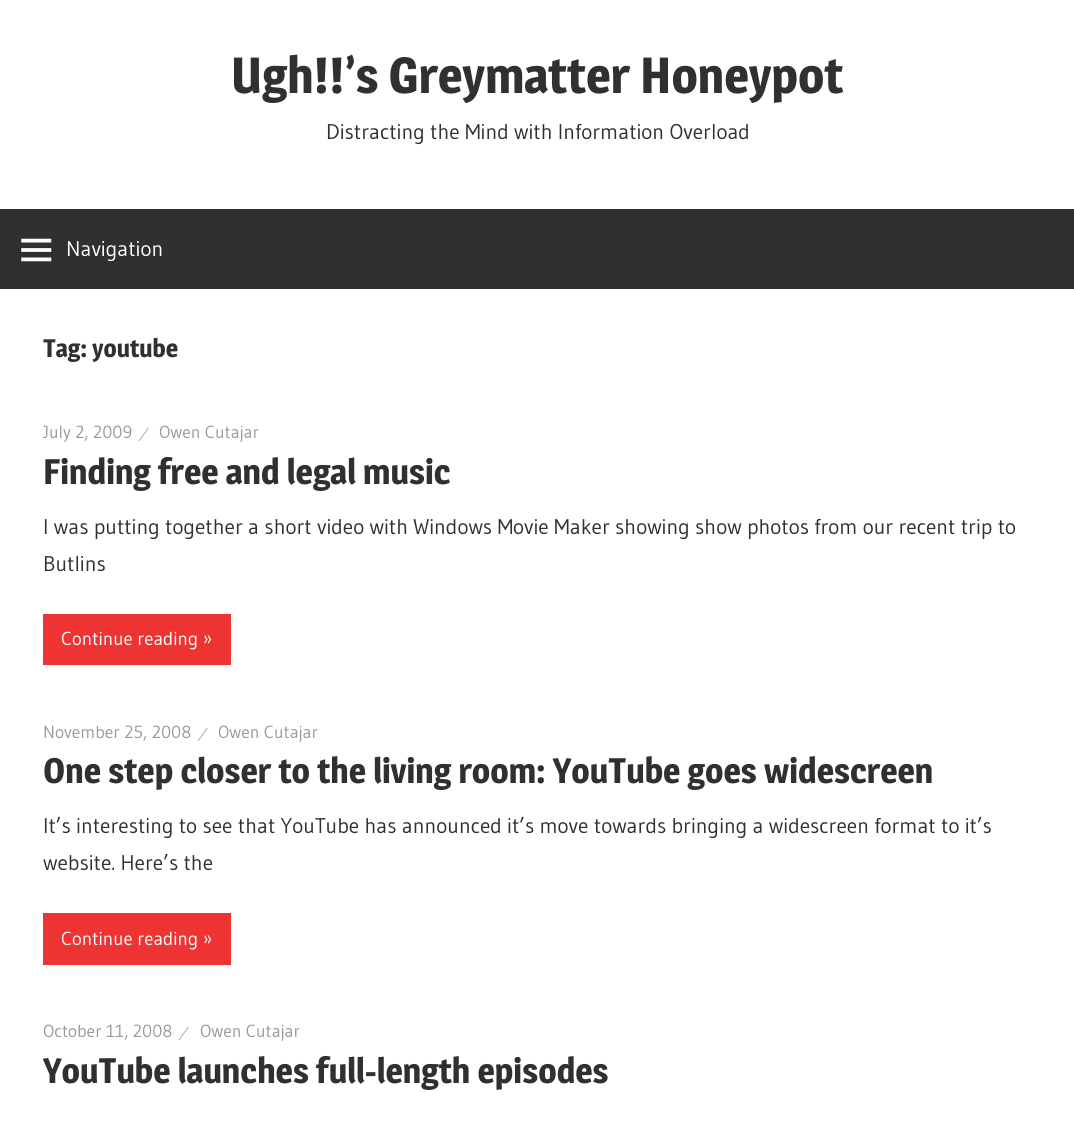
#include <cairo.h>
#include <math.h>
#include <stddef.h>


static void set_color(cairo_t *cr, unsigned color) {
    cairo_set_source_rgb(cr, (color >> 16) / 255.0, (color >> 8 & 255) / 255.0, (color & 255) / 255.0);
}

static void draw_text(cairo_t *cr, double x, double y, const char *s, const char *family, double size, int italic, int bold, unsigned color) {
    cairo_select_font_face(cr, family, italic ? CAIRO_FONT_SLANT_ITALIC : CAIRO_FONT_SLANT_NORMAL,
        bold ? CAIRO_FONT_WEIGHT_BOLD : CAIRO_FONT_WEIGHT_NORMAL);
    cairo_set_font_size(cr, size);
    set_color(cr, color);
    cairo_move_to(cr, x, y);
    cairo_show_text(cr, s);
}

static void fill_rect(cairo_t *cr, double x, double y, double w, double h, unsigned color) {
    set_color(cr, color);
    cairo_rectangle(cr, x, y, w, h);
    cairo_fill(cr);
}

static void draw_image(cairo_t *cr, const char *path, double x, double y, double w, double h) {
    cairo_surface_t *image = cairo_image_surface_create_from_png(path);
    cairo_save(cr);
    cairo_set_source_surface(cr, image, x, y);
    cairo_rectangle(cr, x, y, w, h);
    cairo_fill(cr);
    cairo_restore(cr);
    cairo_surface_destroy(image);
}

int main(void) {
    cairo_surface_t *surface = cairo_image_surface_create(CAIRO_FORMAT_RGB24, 1074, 1122);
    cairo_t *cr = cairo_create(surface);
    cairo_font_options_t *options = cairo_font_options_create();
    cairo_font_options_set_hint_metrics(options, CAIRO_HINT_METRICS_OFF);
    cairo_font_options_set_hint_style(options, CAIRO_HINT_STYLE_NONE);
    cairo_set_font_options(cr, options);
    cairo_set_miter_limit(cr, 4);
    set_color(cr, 0xFFFFFF);
    cairo_paint(cr);
    draw_text(cr, 231, 93, "Ugh!!’s Greymatter Honeypot", "Magra SemiBold", 50, 0, 0, 0x303030);
    draw_text(cr, 326, 139, "Distracting the Mind with Information Overload", "Gudea", 21.25, 0, 0, 0x303030);
    fill_rect(cr, 0, 209, 1074, 80, 0x303030);
    draw_image(cr, "assets/img1.png", 21, 238, 31, 24);
    draw_text(cr, 66, 256, "Navigation", "Gudea", 21.25, 0, 0, 0xFFFFFF);
    draw_text(cr, 43, 357, "Tag: youtube", "Magra SemiBold", 25, 0, 0, 0x303030);
    draw_text(cr, 43, 438, "July 2, 2009", "Gudea", 17.5, 0, 0, 0x999999);
    draw_text(cr, 142, 441, "⁄", "Liberation Serif", 20, 0, 0, 0x999999);
    draw_text(cr, 159, 438, "Owen Cutajar", "Gudea", 17.5, 0, 0, 0x999999);
    draw_text(cr, 43, 484, "Finding free and legal music", "Magra SemiBold", 35, 0, 0, 0x303030);
    draw_text(cr, 43, 534, "I was putting together a short video with Windows Movie Maker showing show photos from our recent trip to", "Gudea", 21.25, 0, 0, 0x303030);
    draw_text(cr, 43, 571, "Butlins", "Gudea", 21.25, 0, 0, 0x303030);
    fill_rect(cr, 43, 614, 188, 51, 0xEE3333);
    draw_text(cr, 61, 645, "Continue reading »", "Gudea", 18.75, 0, 0, 0xFFFFFF);
    draw_text(cr, 43, 738, "November 25, 2008", "Gudea", 17.5, 0, 0, 0x999999);
    draw_text(cr, 201, 741, "⁄", "Liberation Serif", 20, 0, 0, 0x999999);
    draw_text(cr, 218, 738, "Owen Cutajar", "Gudea", 17.5, 0, 0, 0x999999);
    draw_text(cr, 43, 783, "One step closer to the living room: YouTube goes widescreen", "Magra SemiBold", 35, 0, 0, 0x303030);
    draw_text(cr, 43, 833, "It’s interesting to see that YouTube has announced it’s move towards bringing a widescreen format to it’s", "Gudea", 21.25, 0, 0, 0x303030);
    draw_text(cr, 43, 870, "website. Here’s the", "Gudea", 21.25, 0, 0, 0x303030);
    fill_rect(cr, 43, 913, 188, 52, 0xEE3333);
    draw_text(cr, 61, 945, "Continue reading »", "Gudea", 18.75, 0, 0, 0xFFFFFF);
    draw_text(cr, 43, 1037, "October 11, 2008", "Gudea", 17.5, 0, 0, 0x999999);
    draw_text(cr, 182, 1040, "⁄", "Liberation Serif", 20, 0, 0, 0x999999);
    draw_text(cr, 200, 1037, "Owen Cutajar", "Gudea", 17.5, 0, 0, 0x999999);
    draw_text(cr, 43, 1083, "YouTube launches full-length episodes", "Magra SemiBold", 35, 0, 0, 0x303030);
    cairo_surface_write_to_png(surface, "output.png");
    cairo_font_options_destroy(options);
    cairo_destroy(cr);
    cairo_surface_destroy(surface);
    return 0;
}
